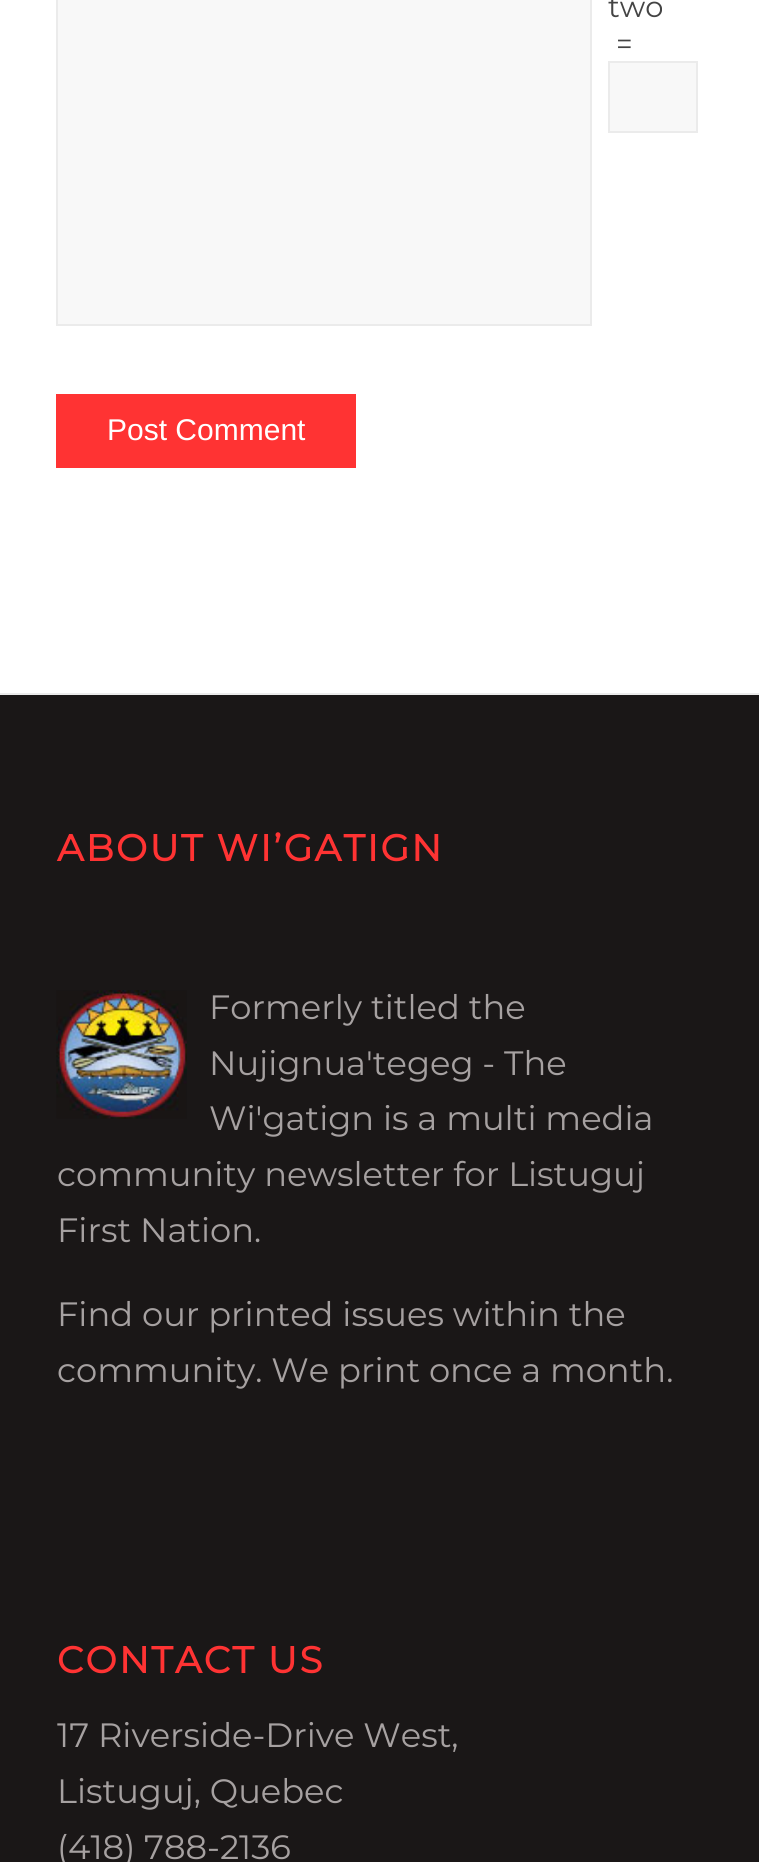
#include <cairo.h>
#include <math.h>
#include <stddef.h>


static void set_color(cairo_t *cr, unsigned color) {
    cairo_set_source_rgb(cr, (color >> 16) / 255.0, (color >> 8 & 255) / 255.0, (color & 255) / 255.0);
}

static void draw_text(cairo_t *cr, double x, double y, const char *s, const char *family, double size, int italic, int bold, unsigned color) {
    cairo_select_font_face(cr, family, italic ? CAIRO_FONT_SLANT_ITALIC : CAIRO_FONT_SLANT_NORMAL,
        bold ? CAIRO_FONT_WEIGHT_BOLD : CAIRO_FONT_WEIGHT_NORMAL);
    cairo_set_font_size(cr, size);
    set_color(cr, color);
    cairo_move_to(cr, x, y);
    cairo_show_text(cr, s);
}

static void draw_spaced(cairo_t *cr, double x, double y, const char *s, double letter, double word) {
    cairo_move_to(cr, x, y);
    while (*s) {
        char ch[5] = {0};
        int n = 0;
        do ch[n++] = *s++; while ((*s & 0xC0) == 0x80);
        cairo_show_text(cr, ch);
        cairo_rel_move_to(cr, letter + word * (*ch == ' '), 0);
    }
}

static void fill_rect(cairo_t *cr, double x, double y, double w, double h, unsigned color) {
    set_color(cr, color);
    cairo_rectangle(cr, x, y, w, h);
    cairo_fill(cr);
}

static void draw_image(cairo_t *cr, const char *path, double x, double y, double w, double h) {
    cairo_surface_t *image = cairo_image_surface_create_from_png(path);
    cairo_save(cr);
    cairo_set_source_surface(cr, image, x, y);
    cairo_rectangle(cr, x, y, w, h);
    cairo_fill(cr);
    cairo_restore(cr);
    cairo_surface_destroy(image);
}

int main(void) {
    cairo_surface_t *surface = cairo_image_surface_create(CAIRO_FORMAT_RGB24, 759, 1862);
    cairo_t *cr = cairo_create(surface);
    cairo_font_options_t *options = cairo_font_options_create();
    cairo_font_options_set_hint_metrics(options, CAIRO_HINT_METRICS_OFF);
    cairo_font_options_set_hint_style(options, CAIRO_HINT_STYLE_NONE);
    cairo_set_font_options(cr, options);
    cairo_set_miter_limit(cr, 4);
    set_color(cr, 0xFFFFFF);
    cairo_paint(cr);
    set_color(cr, 0xF8F8F8);
    cairo_rectangle(cr, 57, -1, 534, 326);
    cairo_fill_preserve(cr);
    set_color(cr, 0xEBEBEB);
    cairo_stroke(cr);
    draw_text(cr, 608, 17, "two", "Montserrat Thin", 29, 0, 0, 0x444444);
    draw_text(cr, 616, 54, "=", "Montserrat Thin", 29, 0, 0, 0x444444);
    set_color(cr, 0xF8F8F8);
    cairo_rectangle(cr, 609, 62, 88, 70);
    cairo_fill_preserve(cr);
    set_color(cr, 0xEBEBEB);
    cairo_stroke(cr);
    fill_rect(cr, 56, 394, 300, 74, 0xFF3333);
    draw_text(cr, 107, 440, "Post Comment", "Liberation Sans", 30, 0, 0, 0xFFFFFF);
    fill_rect(cr, 0, 695, 759, 1167, 0x1A1717);
    fill_rect(cr, 0, 693, 759, 2, 0xEBEBEB);
    cairo_select_font_face(cr, "Montserrat", CAIRO_FONT_SLANT_NORMAL, CAIRO_FONT_WEIGHT_BOLD);
    cairo_set_font_size(cr, 37.1);
    set_color(cr, 0xFF3333);
    draw_spaced(cr, 57, 861, "ABOUT WI’GATIGN", 2.25, 0);
    draw_image(cr, "assets/img1.png", 56, 990, 131, 129);
    draw_text(cr, 209, 1019, "Formerly titled the", "Montserrat Thin", 33.75, 0, 0, 0xA6A1A1);
    draw_text(cr, 209, 1075, "Nujignua'tegeg - The", "Montserrat Thin", 33.75, 0, 0, 0xA6A1A1);
    draw_text(cr, 209, 1130, "Wi'gatign is a multi media", "Montserrat Thin", 33.75, 0, 0, 0xA6A1A1);
    draw_text(cr, 57, 1186, "community newsletter for Listuguj", "Montserrat Thin", 33.75, 0, 0, 0xA6A1A1);
    draw_text(cr, 57, 1242, "First Nation.", "Montserrat Thin", 33.75, 0, 0, 0xA6A1A1);
    draw_text(cr, 57, 1326, "Find our printed issues within the", "Montserrat Thin", 33.75, 0, 0, 0xA6A1A1);
    draw_text(cr, 57, 1382, "community. We print once a month.", "Montserrat Thin", 33.75, 0, 0, 0xA6A1A1);
    cairo_select_font_face(cr, "Montserrat", CAIRO_FONT_SLANT_NORMAL, CAIRO_FONT_WEIGHT_BOLD);
    cairo_set_font_size(cr, 37.1);
    set_color(cr, 0xFF3333);
    draw_spaced(cr, 57, 1673, "CONTACT US", 2.25, 0);
    draw_text(cr, 57, 1747, "17 Riverside-Drive West,", "Montserrat Thin", 33.75, 0, 0, 0xA6A1A1);
    draw_text(cr, 57, 1803, "Listuguj, Quebec", "Montserrat Thin", 33.75, 0, 0, 0xA6A1A1);
    draw_text(cr, 57, 1859, "(418) 788-2136", "Montserrat Thin", 33.75, 0, 0, 0xA6A1A1);
    cairo_surface_write_to_png(surface, "output.png");
    cairo_font_options_destroy(options);
    cairo_destroy(cr);
    cairo_surface_destroy(surface);
    return 0;
}
